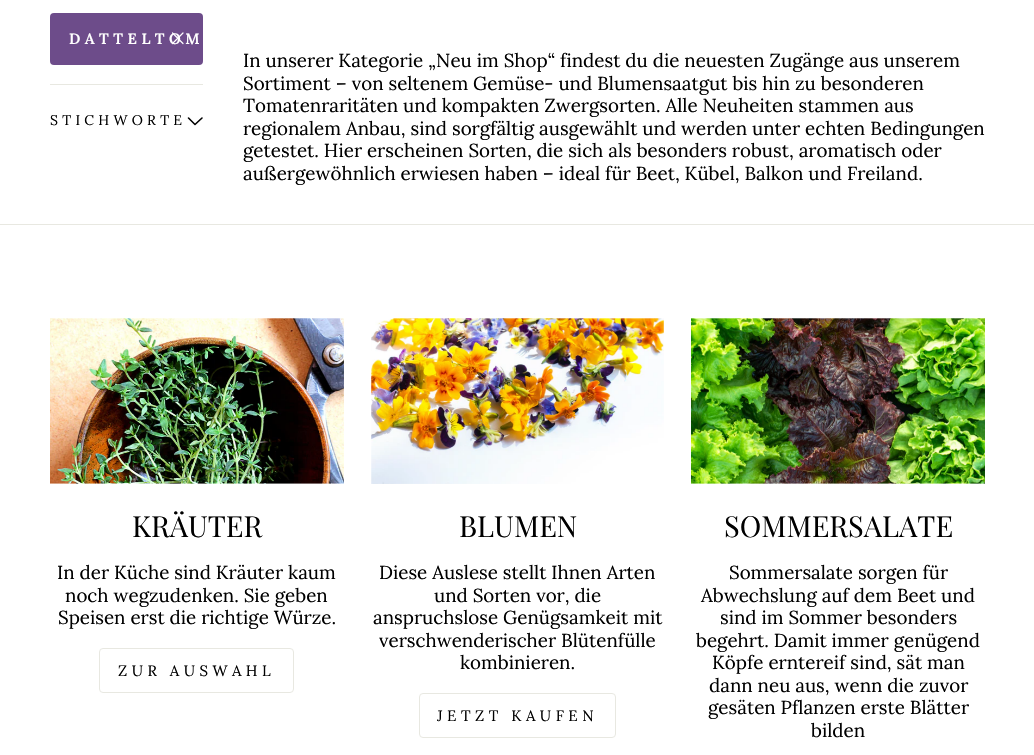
#include "include/core/SkBlurTypes.h"
#include "include/core/SkCanvas.h"
#include "include/core/SkData.h"
#include "include/core/SkFont.h"
#include "include/core/SkFontMgr.h"
#include "include/core/SkImage.h"
#include "include/core/SkMaskFilter.h"
#include "include/core/SkPaint.h"
#include "include/core/SkPathBuilder.h"
#include "include/core/SkTextBlob.h"
#include "include/effects/SkDashPathEffect.h"
#include "include/effects/SkGradientShader.h"
#include "include/utils/SkParsePath.h"

extern sk_sp<SkFontMgr> fontMgr;

void draw(SkCanvas* canvas) {
  SkPaint p;
  p.setAntiAlias(true);
  auto spacedText = [&](const char* s, float x, float y, const SkFont& font, const SkPaint& ink, float letter, float word) {
    std::vector<SkGlyphID> glyphs(font.countText(s, strlen(s), SkTextEncoding::kUTF8));
    std::vector<float> xs(glyphs.size());
    font.textToGlyphs(s, strlen(s), SkTextEncoding::kUTF8, glyphs);
    font.getXPos(glyphs, xs, x);
    float extra = 0;
    for (size_t i = 0; i < glyphs.size(); i++) {
      xs[i] += extra;
      extra += letter + word * (glyphs[i] == font.unicharToGlyph(' '));
    }
    canvas->drawTextBlob(SkTextBlob::MakeFromPosHGlyphs(glyphs, xs, y, font), 0, 0, ink);
  };
  canvas->clear(SK_ColorWHITE);
  p.setColor(SkColorSetRGB(109, 76, 138));
  canvas->drawRoundRect(SkRect::MakeLTRB(50, 13, 203, 65), 4, 4, p);
  p.setStyle(SkPaint::kStroke_Style);
  p.setStrokeWidth(1.2f);
  p.setStrokeCap(SkPaint::kRound_Cap);
  p.setStrokeJoin(SkPaint::kRound_Join);
  p.setColor(SK_ColorWHITE);
  canvas->drawPath(SkPathBuilder().moveTo(172.5f, 33).lineTo(183, 43.5f).moveTo(183, 33).lineTo(172.5f, 43.5f).detach(), p);
  p.setStyle(SkPaint::kFill_Style);
  p.setColor(SkColorSetRGB(232, 232, 225));
  canvas->drawRect(SkRect::MakeLTRB(50, 84, 203, 85), p);
  p.setStyle(SkPaint::kStroke_Style);
  p.setStrokeWidth(1.6f);
  p.setColor(SK_ColorBLACK);
  canvas->drawPath(SkPathBuilder().moveTo(188.5f, 118).lineTo(195, 124.5f).lineTo(202, 118).detach(), p);
  p.setStyle(SkPaint::kFill_Style);
  p.setColor(SkColorSetRGB(232, 232, 225));
  canvas->drawRect(SkRect::MakeLTRB(0, 224, 1034, 225), p);
  canvas->drawImageRect(SkImages::DeferredFromEncodedData(SkData::MakeFromFileName("images/1.png")), SkRect::MakeLTRB(50, 318, 344, 484), SkSamplingOptions());
  p.setStyle(SkPaint::kStroke_Style);
  p.setStrokeWidth(1);
  p.setStrokeCap(SkPaint::kButt_Cap);
  p.setStrokeJoin(SkPaint::kMiter_Join);
  canvas->drawRoundRect(SkRect::MakeLTRB(99.5f, 648.5f, 293.5f, 692.5f), 3.5f, 3.5f, p);
  canvas->drawImageRect(SkImages::DeferredFromEncodedData(SkData::MakeFromFileName("images/2.png")), SkRect::MakeLTRB(371, 318, 664, 484), SkSamplingOptions());
  canvas->drawRoundRect(SkRect::MakeLTRB(419.5f, 693.5f, 615.5f, 737.5f), 3.5f, 3.5f, p);
  canvas->drawImageRect(SkImages::DeferredFromEncodedData(SkData::MakeFromFileName("images/3.png")), SkRect::MakeLTRB(691, 318, 985, 484), SkSamplingOptions());
  SkFont font1(fontMgr->matchFamilyStyle("Lora", SkFontStyle(600, SkFontStyle::kNormal_Width, SkFontStyle::kUpright_Slant)), 15);
  font1.setSubpixel(true);
  p.setStyle(SkPaint::kFill_Style);
  p.setColor(SK_ColorWHITE);
  spacedText("DATTELTOM", 69, 44, font1, p, 4.5f, 0);
  SkFont font2(fontMgr->matchFamilyStyle("Lora", SkFontStyle::Normal()), 14);
  font2.setSubpixel(true);
  p.setColor(SK_ColorBLACK);
  spacedText("STICHWORTE", 50, 125, font2, p, 4.25f, 0);
  SkFont font3(fontMgr->matchFamilyStyle("Lora", SkFontStyle::Normal()), 18.75f);
  font3.setSubpixel(true);
  canvas->drawString("In unserer Kategorie „Neu im Shop“ findest du die neuesten Zugänge aus unserem", 243, 67, font3, p);
  canvas->drawString("Sortiment – von seltenem Gemüse- und Blumensaatgut bis hin zu besonderen", 243, 90, font3, p);
  canvas->drawString("Tomatenraritäten und kompakten Zwergsorten. Alle Neuheiten stammen aus", 243, 112, font3, p);
  canvas->drawString("regionalem Anbau, sind sorgfältig ausgewählt und werden unter echten Bedingungen", 243, 135, font3, p);
  canvas->drawString("getestet. Hier erscheinen Sorten, die sich als besonders robust, aromatisch oder", 243, 157, font3, p);
  canvas->drawString("außergewöhnlich erwiesen haben – ideal für Beet, Kübel, Balkon und Freiland.", 243, 180, font3, p);
  SkFont font4(fontMgr->matchFamilyStyle("Playfair Display", SkFontStyle::Normal()), 29);
  font4.setSubpixel(true);
  canvas->drawString("KRÄUTER", 132, 537, font4, p);
  canvas->drawString("In der Küche sind Kräuter kaum", 57, 579, font3, p);
  canvas->drawString("noch wegzudenken. Sie geben", 65, 602, font3, p);
  canvas->drawString("Speisen erst die richtige Würze.", 58, 624, font3, p);
  SkFont font5(fontMgr->matchFamilyStyle("Lora", SkFontStyle::Normal()), 15);
  font5.setSubpixel(true);
  spacedText("ZUR AUSWAHL", 118, 676, font5, p, 4.5f, 0);
  canvas->drawString("BLUMEN", 459, 537, font4, p);
  canvas->drawString("Diese Auslese stellt Ihnen Arten", 379, 579, font3, p);
  canvas->drawString("und Sorten vor, die", 434, 602, font3, p);
  canvas->drawString("anspruchslose Genügsamkeit mit", 373, 624, font3, p);
  canvas->drawString("verschwenderischer Blütenfülle", 379, 647, font3, p);
  canvas->drawString("kombinieren.", 460, 669, font3, p);
  spacedText("JETZT KAUFEN", 437, 721, font5, p, 4.5f, 0);
  canvas->drawString("SOMMERSALATE", 724, 537, font4, p);
  canvas->drawString("Sommersalate sorgen für", 729, 579, font3, p);
  canvas->drawString("Abwechslung auf dem Beet und", 701, 602, font3, p);
  canvas->drawString("sind im Sommer besonders", 720, 624, font3, p);
  canvas->drawString("begehrt. Damit immer genügend", 696, 647, font3, p);
  canvas->drawString("Köpfe erntereif sind, sät man", 712, 669, font3, p);
  canvas->drawString("dann neu aus, wenn die zuvor", 709, 692, font3, p);
  canvas->drawString("gesäten Pflanzen erste Blätter", 708, 714, font3, p);
  canvas->drawString("bilden", 811, 737, font3, p);
}
